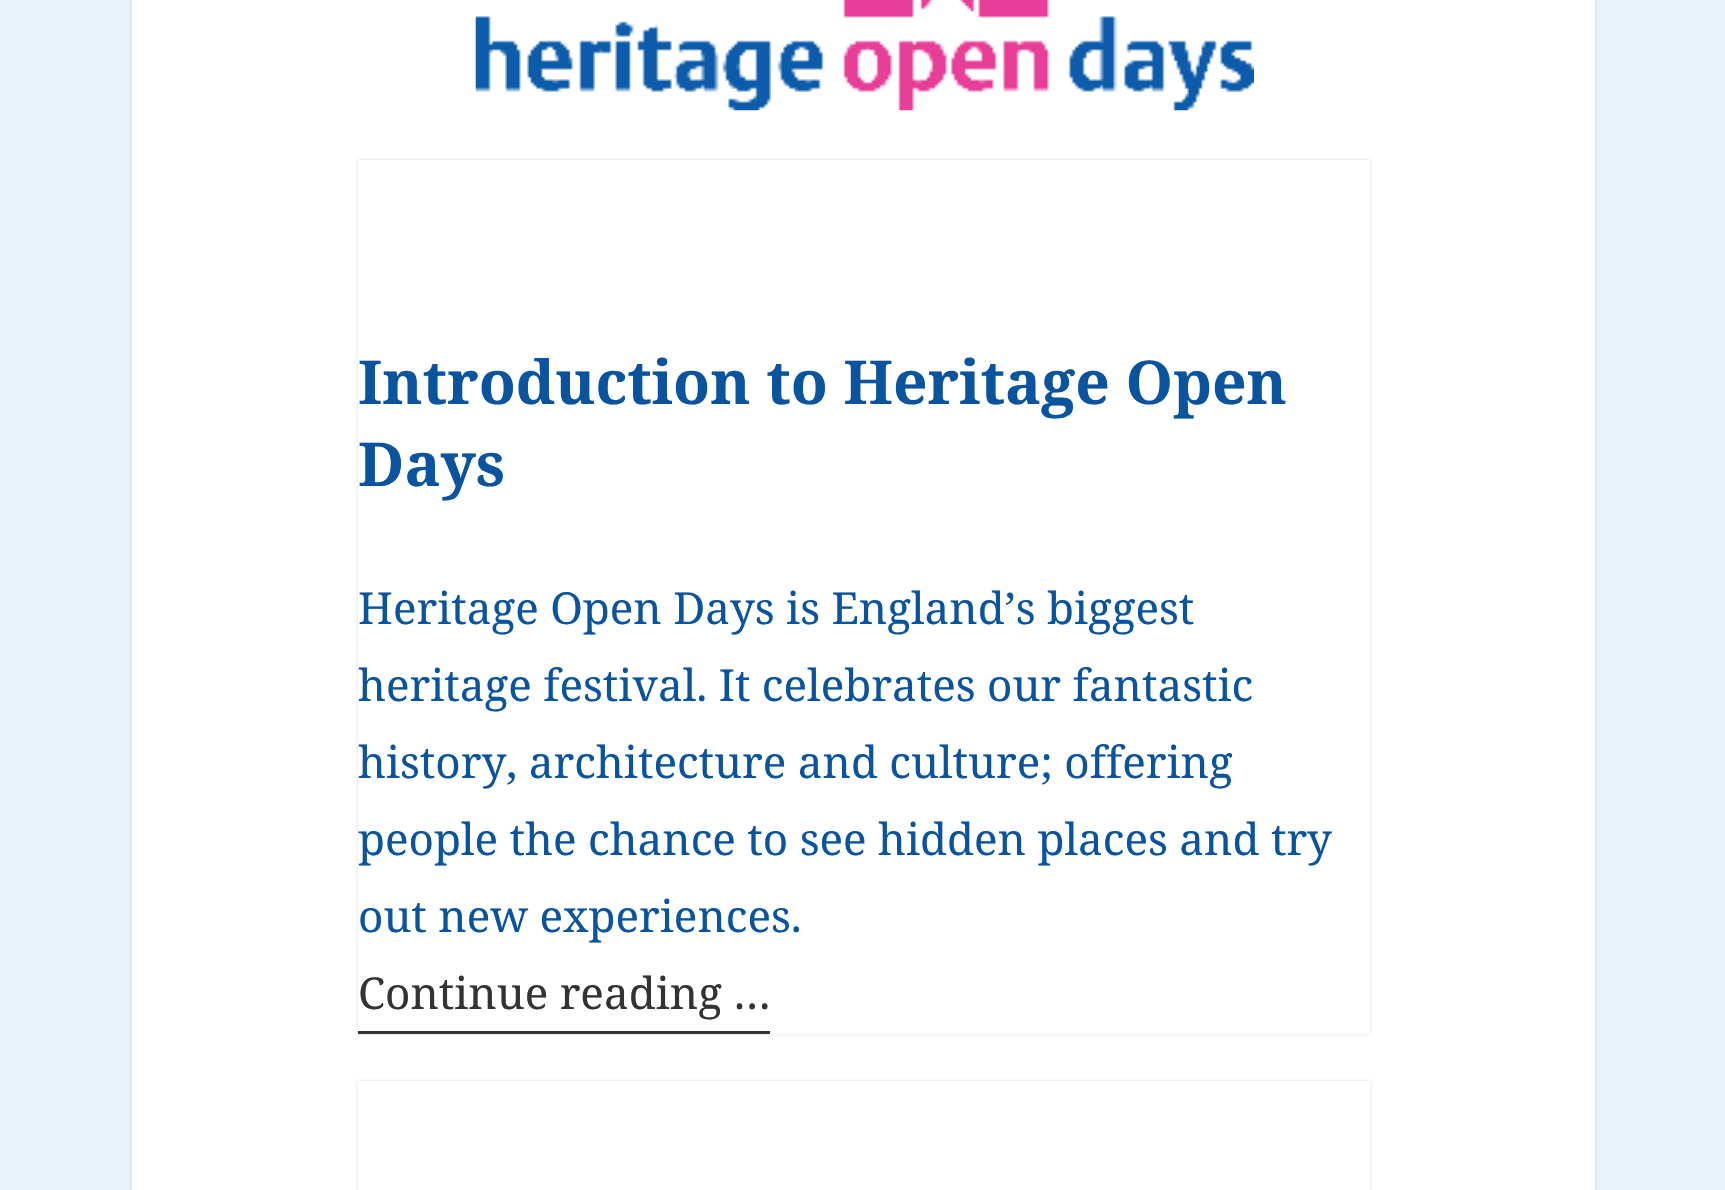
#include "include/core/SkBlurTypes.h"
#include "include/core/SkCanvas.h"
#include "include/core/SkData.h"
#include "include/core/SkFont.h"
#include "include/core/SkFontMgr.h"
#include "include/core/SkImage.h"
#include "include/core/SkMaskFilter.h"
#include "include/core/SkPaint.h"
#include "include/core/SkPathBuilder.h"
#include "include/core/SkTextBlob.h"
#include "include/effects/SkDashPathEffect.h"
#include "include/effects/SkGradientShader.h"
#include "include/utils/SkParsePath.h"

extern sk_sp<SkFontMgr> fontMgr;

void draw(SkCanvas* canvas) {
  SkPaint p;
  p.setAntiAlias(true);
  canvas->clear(SkColorSetRGB(233, 242, 249));
  p.setColor(SkColorSetARGB(38, 0, 0, 0));
  p.setMaskFilter(SkMaskFilter::MakeBlur(kNormal_SkBlurStyle, 1.5f));
  canvas->drawRect(SkRect::MakeLTRB(132, -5, 1595, 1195), p);
  p.setMaskFilter(nullptr);
  p.setColor(SK_ColorWHITE);
  canvas->drawRect(SkRect::MakeLTRB(132, 0, 1595, 1190), p);
  canvas->drawImageRect(SkImages::DeferredFromEncodedData(SkData::MakeFromFileName("images/1.png")), SkRect::MakeLTRB(475, 0, 1254, 111), SkSamplingOptions());
  p.setColor(SkColorSetARGB(38, 0, 0, 0));
  p.setMaskFilter(SkMaskFilter::MakeBlur(kNormal_SkBlurStyle, 1.5f));
  canvas->drawRect(SkRect::MakeLTRB(358, 160, 1370, 1034), p);
  p.setMaskFilter(nullptr);
  p.setColor(SK_ColorWHITE);
  canvas->drawRect(SkRect::MakeLTRB(358, 160, 1370, 1034), p);
  p.setColor(SkColorSetRGB(51, 51, 51));
  canvas->drawRect(SkRect::MakeLTRB(358, 1031, 770, 1034), p);
  p.setColor(SkColorSetARGB(38, 0, 0, 0));
  p.setMaskFilter(SkMaskFilter::MakeBlur(kNormal_SkBlurStyle, 1.5f));
  canvas->drawRect(SkRect::MakeLTRB(358, 1081, 1370, 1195), p);
  p.setMaskFilter(nullptr);
  p.setColor(SK_ColorWHITE);
  canvas->drawRect(SkRect::MakeLTRB(358, 1081, 1370, 1190), p);
  SkFont font1(fontMgr->matchFamilyStyle("Noto Serif", SkFontStyle::Bold()), 60.5f);
  font1.setSubpixel(true);
  p.setColor(SkColorSetRGB(9, 83, 159));
  canvas->drawString("Introduction to Heritage Open", 358, 404, font1, p);
  canvas->drawString("Days", 358, 486, font1, p);
  SkFont font2(fontMgr->matchFamilyStyle("Noto Serif", SkFontStyle::Normal()), 44);
  font2.setSubpixel(true);
  canvas->drawString("Heritage Open Days is England’s biggest", 358, 624, font2, p);
  canvas->drawString("heritage festival. It celebrates our fantastic", 358, 701, font2, p);
  canvas->drawString("history, architecture and culture; offering", 358, 778, font2, p);
  canvas->drawString("people the chance to see hidden places and try", 358, 855, font2, p);
  canvas->drawString("out new experiences.", 358, 932, font2, p);
  p.setColor(SkColorSetRGB(51, 51, 51));
  canvas->drawString("Continue reading …", 358, 1009, font2, p);
}
